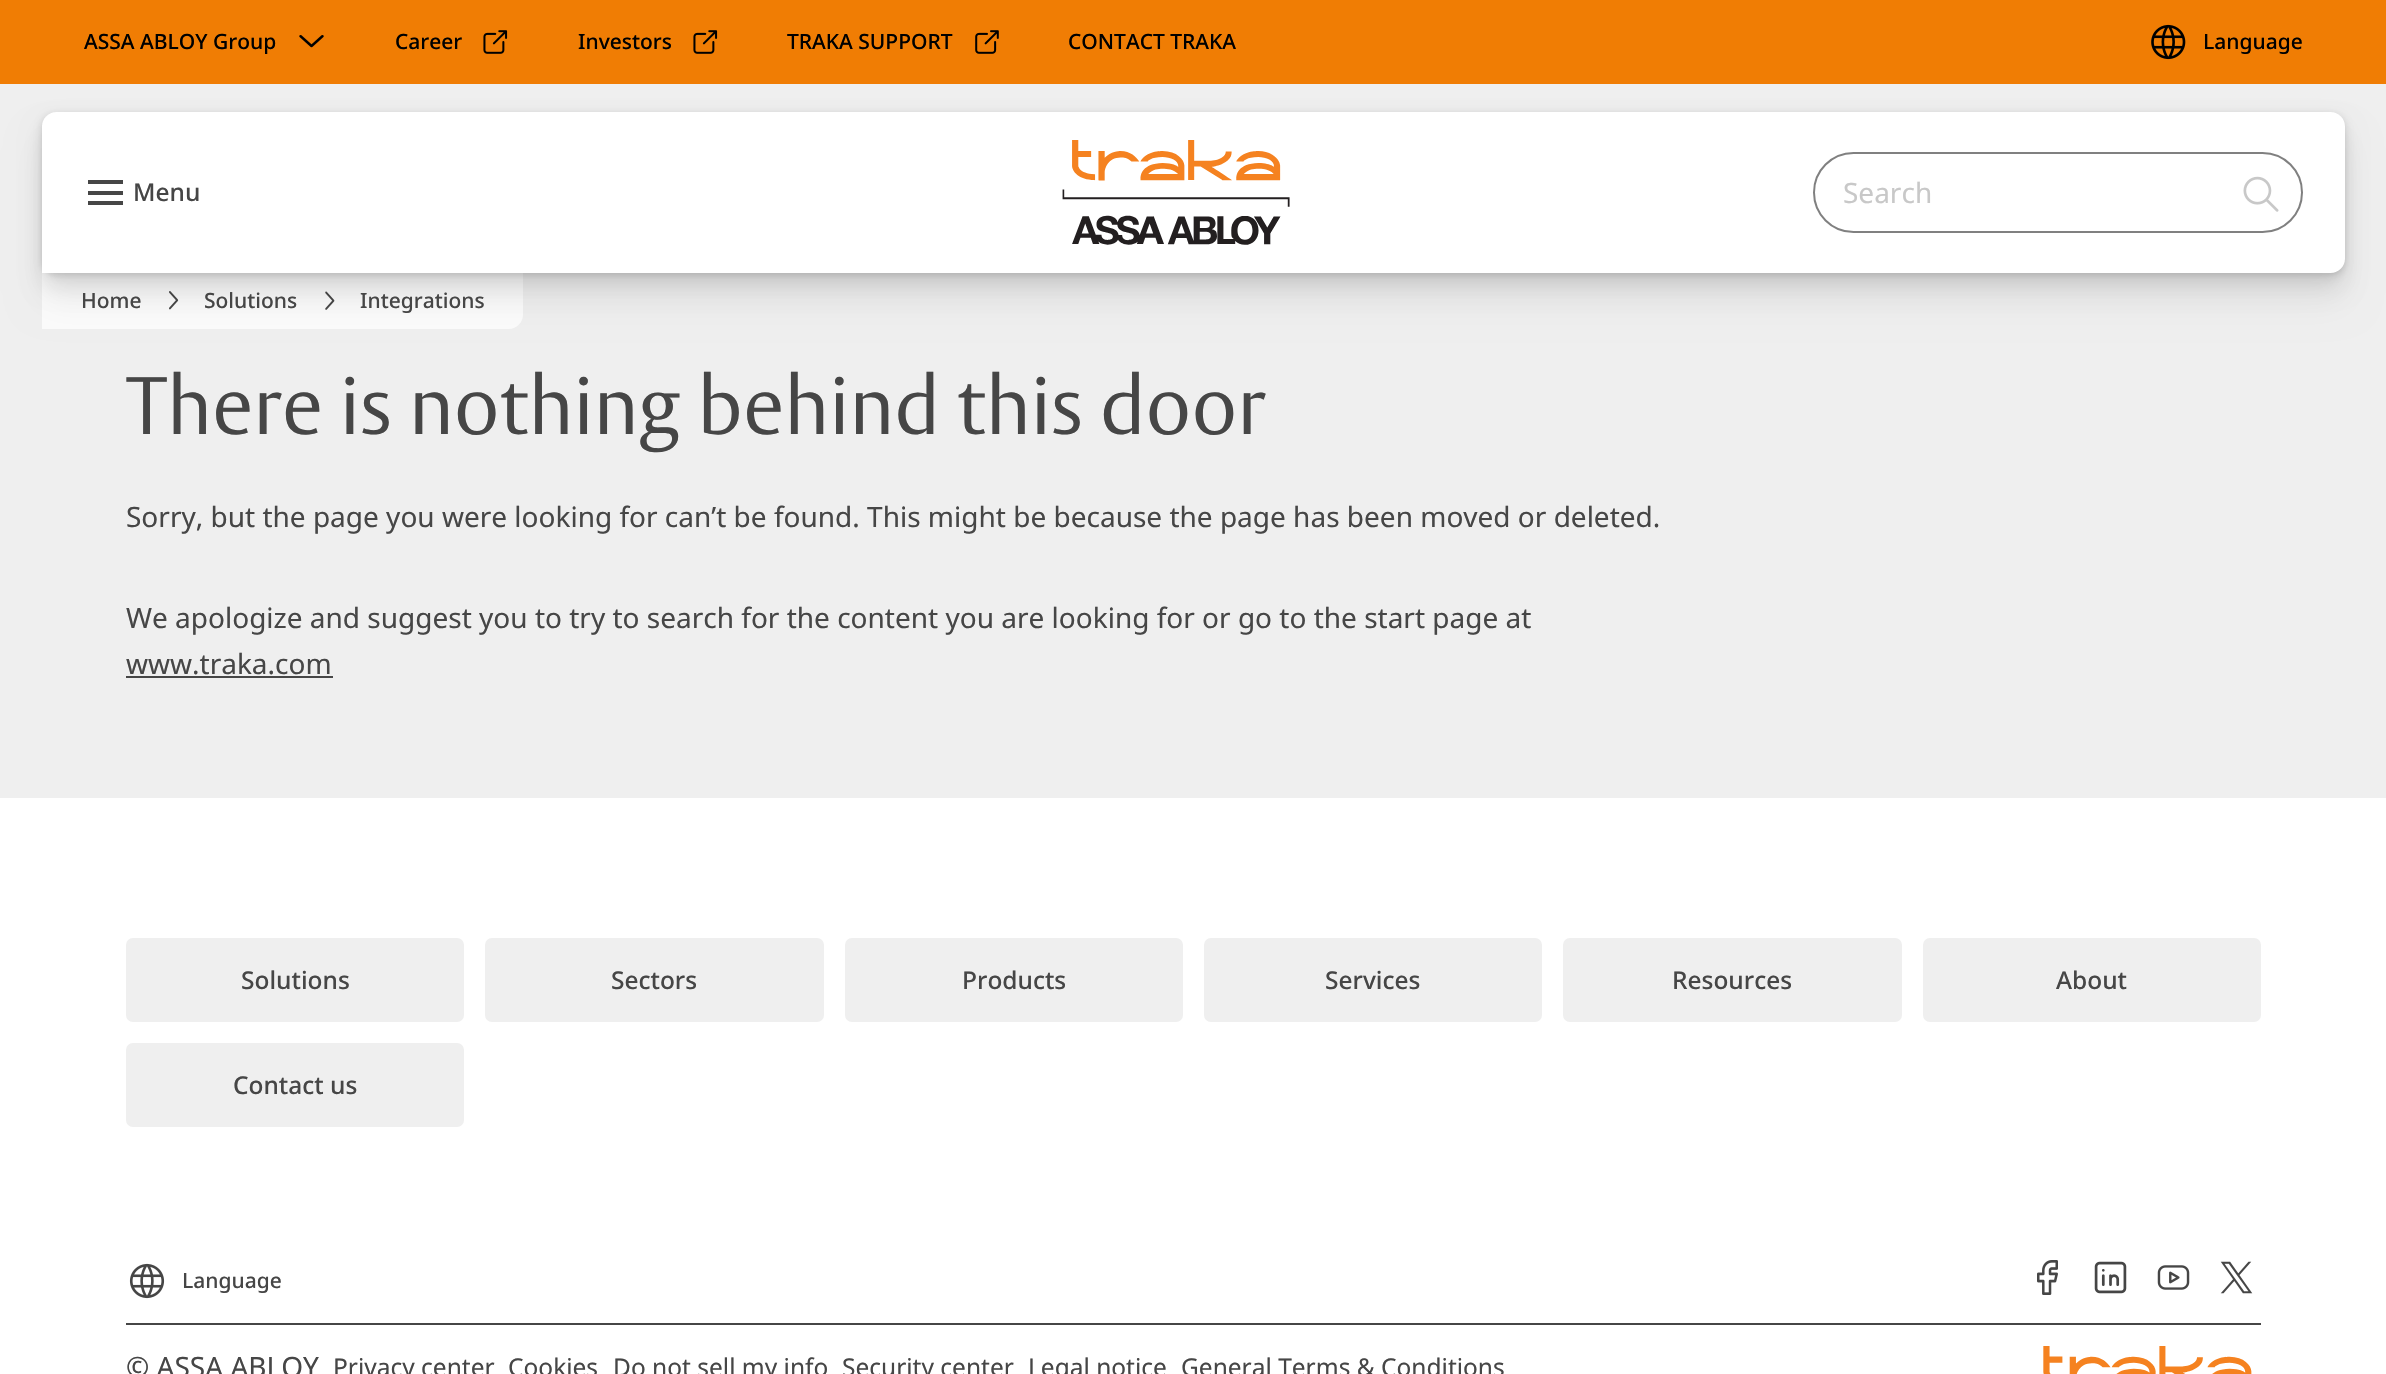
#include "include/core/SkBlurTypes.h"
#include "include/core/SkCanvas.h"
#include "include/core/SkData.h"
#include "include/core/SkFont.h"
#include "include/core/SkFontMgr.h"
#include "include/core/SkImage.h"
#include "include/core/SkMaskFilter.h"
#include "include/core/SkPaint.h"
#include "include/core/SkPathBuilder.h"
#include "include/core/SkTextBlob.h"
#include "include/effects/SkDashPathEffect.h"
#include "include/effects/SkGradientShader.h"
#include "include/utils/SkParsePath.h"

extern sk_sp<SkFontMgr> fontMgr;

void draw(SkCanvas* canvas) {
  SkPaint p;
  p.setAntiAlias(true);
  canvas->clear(SK_ColorWHITE);
  p.setColor(SkColorSetRGB(240, 125, 4));
  canvas->drawRect(SkRect::MakeLTRB(0, 0, 2386, 84), p);
  canvas->drawImageRect(SkImages::DeferredFromEncodedData(SkData::MakeFromFileName("images/1.png")), SkRect::MakeLTRB(299, 35, 324, 48), SkSamplingOptions());
  canvas->drawImageRect(SkImages::DeferredFromEncodedData(SkData::MakeFromFileName("images/2.png")), SkRect::MakeLTRB(483, 30, 508, 54), SkSamplingOptions());
  canvas->drawImageRect(SkImages::DeferredFromEncodedData(SkData::MakeFromFileName("images/2.png")), SkRect::MakeLTRB(693, 30, 718, 54), SkSamplingOptions());
  canvas->drawImageRect(SkImages::DeferredFromEncodedData(SkData::MakeFromFileName("images/3.png")), SkRect::MakeLTRB(975, 30, 999, 54), SkSamplingOptions());
  canvas->drawImageRect(SkImages::DeferredFromEncodedData(SkData::MakeFromFileName("images/4.png")), SkRect::MakeLTRB(2151, 24, 2186, 60), SkSamplingOptions());
  p.setColor(SkColorSetRGB(239, 239, 239));
  canvas->drawRect(SkRect::MakeLTRB(0, 84, 2386, 798), p);
  p.setColor(SK_ColorWHITE);
  canvas->drawPath(SkPathBuilder().moveTo(56, 112).lineTo(2331, 112).cubicTo(2338.5f, 112, 2345, 118.5f, 2345, 126).lineTo(2345, 259).cubicTo(2345, 266.5f, 2338.5f, 273, 2331, 273).lineTo(42, 273).lineTo(42, 126).cubicTo(42, 118.5f, 48.5f, 112, 56, 112).close().detach(), p);
  p.setColor(SkColorSetRGB(70, 70, 70));
  canvas->drawRect(SkRect::MakeLTRB(88, 180, 123, 184), p);
  canvas->drawRect(SkRect::MakeLTRB(88, 191, 123, 195), p);
  canvas->drawRect(SkRect::MakeLTRB(88, 201, 123, 205), p);
  canvas->drawImageRect(SkImages::DeferredFromEncodedData(SkData::MakeFromFileName("images/5.png")), SkRect::MakeLTRB(1062, 140, 1290, 245), SkSamplingOptions());
  p.setColor(SkColorSetRGB(251, 251, 251));
  canvas->drawPath(SkPathBuilder().moveTo(42, 273).lineTo(523, 273).lineTo(523, 315).cubicTo(523, 322.5f, 516.5f, 329, 509, 329).lineTo(42, 329).close().detach(), p);
  canvas->save();
  canvas->clipPath(SkPathBuilder(SkPathFillType::kEvenOdd).moveTo(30, 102).lineTo(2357, 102).lineTo(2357, 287).lineTo(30, 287).close().moveTo(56, 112).lineTo(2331, 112).cubicTo(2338.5f, 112, 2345, 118.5f, 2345, 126).lineTo(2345, 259).cubicTo(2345, 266.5f, 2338.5f, 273, 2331, 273).lineTo(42, 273).lineTo(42, 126).cubicTo(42, 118.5f, 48.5f, 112, 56, 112).close().detach(), true);
  p.setColor(SkColorSetARGB(38, 0, 0, 0));
  p.setMaskFilter(SkMaskFilter::MakeBlur(kNormal_SkBlurStyle, 3.5f));
  canvas->drawRoundRect(SkRect::MakeLTRB(42, 114, 2345, 275), 14, 14, p);
  p.setMaskFilter(nullptr);
  canvas->restore();
  canvas->drawImageRect(SkImages::DeferredFromEncodedData(SkData::MakeFromFileName("images/7.png")), SkRect::MakeLTRB(169, 291, 179, 310), SkSamplingOptions());
  canvas->drawImageRect(SkImages::DeferredFromEncodedData(SkData::MakeFromFileName("images/8.png")), SkRect::MakeLTRB(325, 291, 335, 310), SkSamplingOptions());
  canvas->save();
  canvas->clipPath(SkPathBuilder(SkPathFillType::kEvenOdd).moveTo(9, 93).lineTo(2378, 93).lineTo(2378, 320).lineTo(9, 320).close().moveTo(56, 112).lineTo(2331, 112).cubicTo(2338.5f, 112, 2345, 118.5f, 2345, 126).lineTo(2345, 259).cubicTo(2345, 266.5f, 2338.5f, 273, 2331, 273).lineTo(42, 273).lineTo(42, 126).cubicTo(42, 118.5f, 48.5f, 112, 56, 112).close().detach(), true);
  p.setColor(SkColorSetARGB(26, 0, 0, 0));
  p.setMaskFilter(SkMaskFilter::MakeBlur(kNormal_SkBlurStyle, 10.5f));
  canvas->drawRoundRect(SkRect::MakeLTRB(42, 126, 2345, 287), 14, 14, p);
  p.setMaskFilter(nullptr);
  canvas->restore();
  canvas->save();
  canvas->clipPath(SkPathBuilder(SkPathFillType::kEvenOdd).moveTo(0, 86).lineTo(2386, 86).lineTo(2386, 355).lineTo(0, 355).close().moveTo(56, 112).lineTo(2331, 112).cubicTo(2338.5f, 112, 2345, 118.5f, 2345, 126).lineTo(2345, 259).cubicTo(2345, 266.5f, 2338.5f, 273, 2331, 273).lineTo(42, 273).lineTo(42, 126).cubicTo(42, 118.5f, 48.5f, 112, 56, 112).close().detach(), true);
  p.setColor(SkColorSetARGB(13, 0, 0, 0));
  p.setMaskFilter(SkMaskFilter::MakeBlur(kNormal_SkBlurStyle, 17.5f));
  canvas->drawRoundRect(SkRect::MakeLTRB(42, 140, 2345, 301), 14, 14, p);
  p.setMaskFilter(nullptr);
  canvas->restore();
  p.setStyle(SkPaint::kStroke_Style);
  p.setStrokeWidth(2);
  p.setColor(SkColorSetRGB(128, 128, 128));
  canvas->drawRoundRect(SkRect::MakeLTRB(1814, 153, 2302, 232), 39.5f, 39.5f, p);
  canvas->drawImageRect(SkImages::DeferredFromEncodedData(SkData::MakeFromFileName("images/6.png")), SkRect::MakeLTRB(2243, 176, 2279, 212), SkSamplingOptions());
  p.setStyle(SkPaint::kFill_Style);
  p.setColor(SkColorSetRGB(70, 70, 70));
  canvas->drawRect(SkRect::MakeLTRB(126, 676, 333, 678), p);
  p.setColor(SkColorSetRGB(239, 239, 239));
  canvas->drawRoundRect(SkRect::MakeLTRB(128, 940, 462, 1020), 5, 5, p);
  p.setStyle(SkPaint::kStroke_Style);
  p.setStrokeWidth(4);
  canvas->drawRoundRect(SkRect::MakeLTRB(128, 940, 462, 1020), 5, 5, p);
  p.setStyle(SkPaint::kFill_Style);
  canvas->drawRoundRect(SkRect::MakeLTRB(487, 940, 822, 1020), 5, 5, p);
  p.setStyle(SkPaint::kStroke_Style);
  canvas->drawRoundRect(SkRect::MakeLTRB(487, 940, 822, 1020), 5, 5, p);
  p.setStyle(SkPaint::kFill_Style);
  canvas->drawRoundRect(SkRect::MakeLTRB(847, 940, 1181, 1020), 5, 5, p);
  p.setStyle(SkPaint::kStroke_Style);
  canvas->drawRoundRect(SkRect::MakeLTRB(847, 940, 1181, 1020), 5, 5, p);
  p.setStyle(SkPaint::kFill_Style);
  canvas->drawRoundRect(SkRect::MakeLTRB(1206, 940, 1540, 1020), 5, 5, p);
  p.setStyle(SkPaint::kStroke_Style);
  canvas->drawRoundRect(SkRect::MakeLTRB(1206, 940, 1540, 1020), 5, 5, p);
  p.setStyle(SkPaint::kFill_Style);
  canvas->drawRoundRect(SkRect::MakeLTRB(1565, 940, 1900, 1020), 5, 5, p);
  p.setStyle(SkPaint::kStroke_Style);
  canvas->drawRoundRect(SkRect::MakeLTRB(1565, 940, 1900, 1020), 5, 5, p);
  p.setStyle(SkPaint::kFill_Style);
  canvas->drawRoundRect(SkRect::MakeLTRB(1925, 940, 2259, 1020), 5, 5, p);
  p.setStyle(SkPaint::kStroke_Style);
  canvas->drawRoundRect(SkRect::MakeLTRB(1925, 940, 2259, 1020), 5, 5, p);
  p.setStyle(SkPaint::kFill_Style);
  canvas->drawRoundRect(SkRect::MakeLTRB(128, 1045, 462, 1125), 5, 5, p);
  p.setStyle(SkPaint::kStroke_Style);
  canvas->drawRoundRect(SkRect::MakeLTRB(128, 1045, 462, 1125), 5, 5, p);
  canvas->drawImageRect(SkImages::DeferredFromEncodedData(SkData::MakeFromFileName("images/9.png")), SkRect::MakeLTRB(129, 1263, 165, 1299), SkSamplingOptions());
  canvas->drawImageRect(SkImages::DeferredFromEncodedData(SkData::MakeFromFileName("images/10.png")), SkRect::MakeLTRB(2037, 1260, 2058, 1295), SkSamplingOptions());
  canvas->drawImageRect(SkImages::DeferredFromEncodedData(SkData::MakeFromFileName("images/11.png")), SkRect::MakeLTRB(2094, 1261, 2127, 1294), SkSamplingOptions());
  canvas->drawImageRect(SkImages::DeferredFromEncodedData(SkData::MakeFromFileName("images/12.png")), SkRect::MakeLTRB(2157, 1265, 2190, 1290), SkSamplingOptions());
  canvas->drawImageRect(SkImages::DeferredFromEncodedData(SkData::MakeFromFileName("images/13.png")), SkRect::MakeLTRB(2220, 1261, 2253, 1294), SkSamplingOptions());
  p.setStyle(SkPaint::kFill_Style);
  p.setColor(SkColorSetRGB(70, 70, 70));
  canvas->drawRect(SkRect::MakeLTRB(126, 1323, 2261, 1325), p);
  canvas->drawImageRect(SkImages::DeferredFromEncodedData(SkData::MakeFromFileName("images/14.png")), SkRect::MakeLTRB(2043, 1346, 2252, 1374), SkSamplingOptions());
  SkFont font1(fontMgr->matchFamilyStyle("Noto Sans", SkFontStyle(500, SkFontStyle::kNormal_Width, SkFontStyle::kUpright_Slant)), 21);
  font1.setSubpixel(true);
  p.setColor(SK_ColorBLACK);
  canvas->drawString("ASSA ABLOY Group", 84, 49, font1, p);
  canvas->drawString("Career", 395, 49, font1, p);
  canvas->drawString("Investors", 578, 49, font1, p);
  canvas->drawString("TRAKA SUPPORT", 787, 49, font1, p);
  canvas->drawString("CONTACT TRAKA", 1068, 49, font1, p);
  canvas->drawString("Language", 2203, 49, font1, p);
  SkFont font2(fontMgr->matchFamilyStyle("Noto Sans", SkFontStyle(500, SkFontStyle::kNormal_Width, SkFontStyle::kUpright_Slant)), 24.5f);
  font2.setSubpixel(true);
  p.setColor(SkColorSetRGB(70, 70, 70));
  canvas->drawString("Menu", 133, 201, font2, p);
  SkFont font3(fontMgr->matchFamilyStyle("Noto Sans", SkFontStyle::Normal()), 28);
  font3.setSubpixel(true);
  p.setColor(SkColorSetRGB(200, 200, 200));
  canvas->drawString("Search", 1843, 203, font3, p);
  p.setColor(SkColorSetRGB(70, 70, 70));
  canvas->drawString("Home", 81, 308, font1, p);
  canvas->drawString("Solutions", 204, 308, font1, p);
  canvas->drawString("Integrations", 360, 308, font1, p);
  SkFont font4(fontMgr->matchFamilyStyle("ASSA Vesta", SkFontStyle(300, SkFontStyle::kNormal_Width, SkFontStyle::kUpright_Slant)), 80.5f);
  font4.setSubpixel(true);
  canvas->drawString("There is nothing behind this door", 126, 434, font4, p);
  canvas->drawString("Sorry, but the page you were looking for can’t be found. This might be because the page has been moved or deleted.", 126, 527, font3, p);
  canvas->drawString("We apologize and suggest you to try to search for the content you are looking for or go to the start page at", 126, 628, font3, p);
  canvas->drawString("www.traka.com", 126, 674, font3, p);
  canvas->drawString("Solutions", 241, 989, font2, p);
  canvas->drawString("Sectors", 611, 989, font2, p);
  canvas->drawString("Products", 962, 989, font2, p);
  canvas->drawString("Services", 1325, 989, font2, p);
  canvas->drawString("Resources", 1672, 989, font2, p);
  canvas->drawString("About", 2056, 989, font2, p);
  canvas->drawString("Contact us", 233, 1094, font2, p);
  canvas->drawString("Language", 182, 1288, font1, p);
  canvas->drawString("© ASSA ABLOY", 126, 1377, font3, p);
  SkFont font5(fontMgr->matchFamilyStyle("Noto Sans", SkFontStyle::Normal()), 24.5f);
  font5.setSubpixel(true);
  canvas->drawString("Privacy center", 333, 1376, font5, p);
  canvas->drawString("Cookies", 508, 1376, font5, p);
  canvas->drawString("Do not sell my info", 613, 1376, font5, p);
  canvas->drawString("Security center", 842, 1376, font5, p);
  canvas->drawString("Legal notice", 1028, 1376, font5, p);
  canvas->drawString("General Terms & Conditions", 1181, 1376, font5, p);
}
